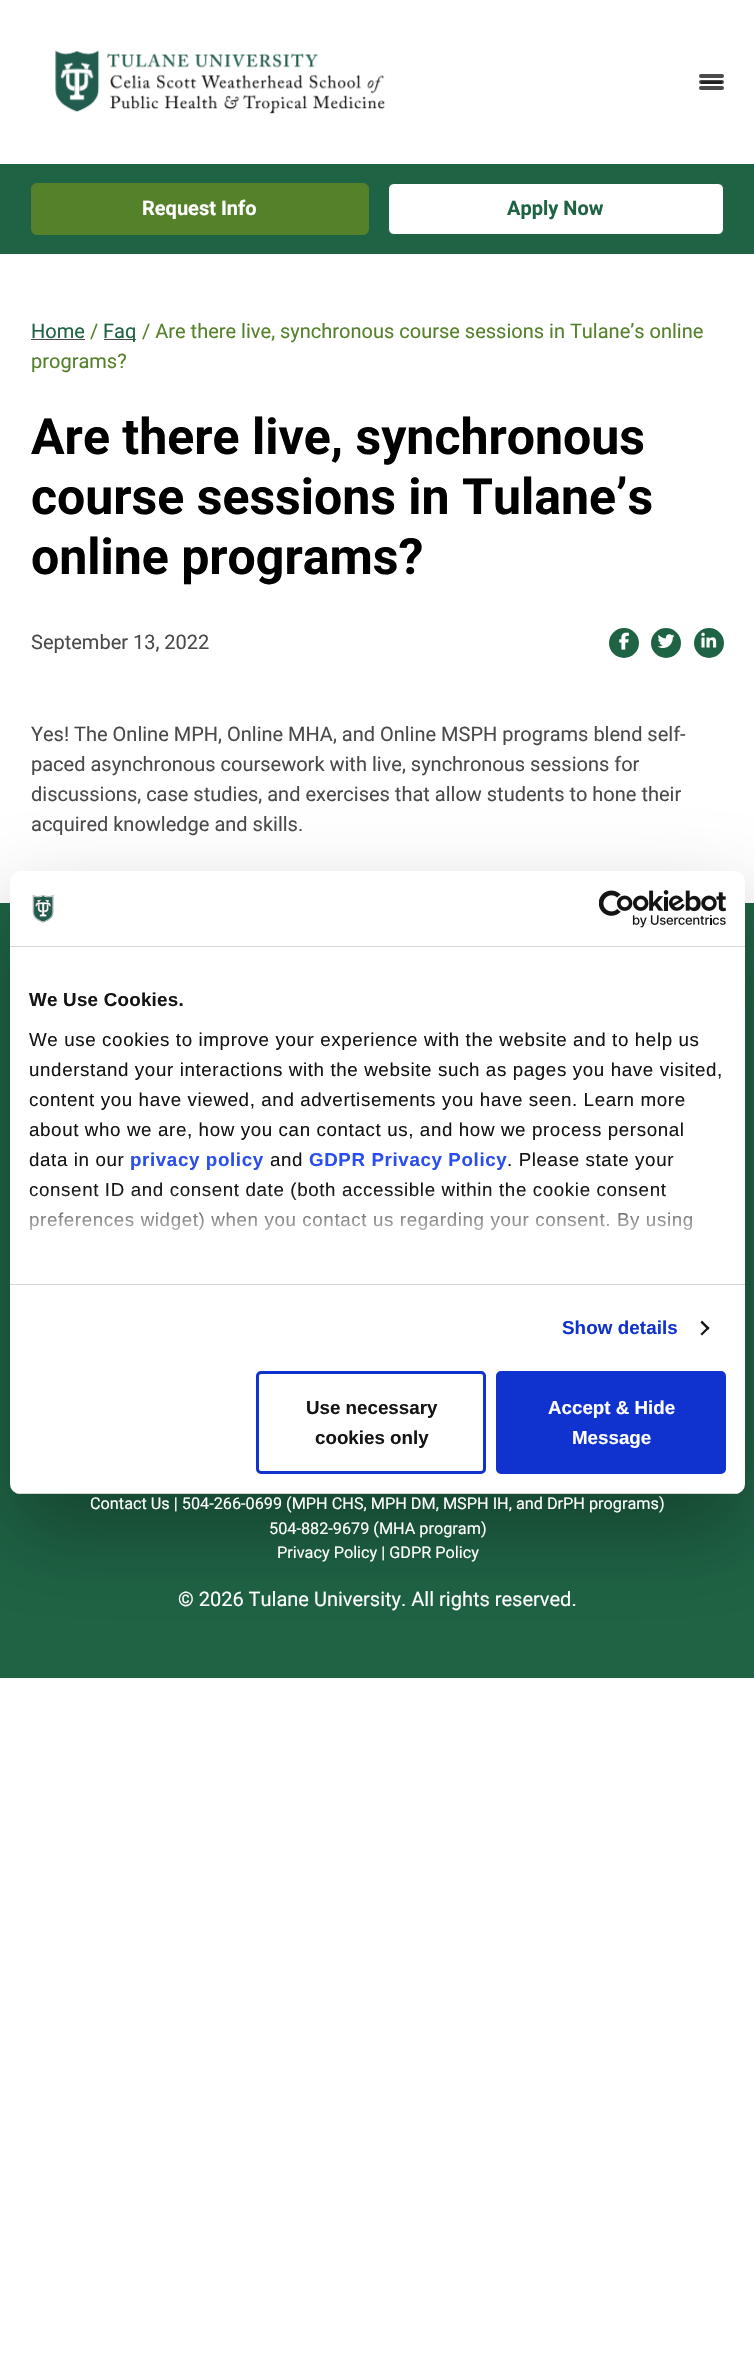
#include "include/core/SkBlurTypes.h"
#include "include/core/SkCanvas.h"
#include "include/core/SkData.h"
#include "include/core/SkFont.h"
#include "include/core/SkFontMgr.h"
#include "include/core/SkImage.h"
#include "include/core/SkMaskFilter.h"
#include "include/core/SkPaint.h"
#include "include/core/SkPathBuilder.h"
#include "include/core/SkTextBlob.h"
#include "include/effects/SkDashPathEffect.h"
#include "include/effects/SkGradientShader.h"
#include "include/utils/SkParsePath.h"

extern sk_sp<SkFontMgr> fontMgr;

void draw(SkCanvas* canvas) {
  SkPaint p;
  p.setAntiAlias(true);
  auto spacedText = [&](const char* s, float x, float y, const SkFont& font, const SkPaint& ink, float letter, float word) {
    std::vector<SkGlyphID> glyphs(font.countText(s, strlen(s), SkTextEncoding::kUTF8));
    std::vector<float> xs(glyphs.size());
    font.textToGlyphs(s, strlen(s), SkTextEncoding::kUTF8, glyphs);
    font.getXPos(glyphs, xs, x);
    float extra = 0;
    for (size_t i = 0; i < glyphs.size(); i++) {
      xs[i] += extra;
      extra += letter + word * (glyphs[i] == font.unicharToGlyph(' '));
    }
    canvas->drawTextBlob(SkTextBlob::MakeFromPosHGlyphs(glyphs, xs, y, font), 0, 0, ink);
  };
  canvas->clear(SK_ColorWHITE);
  canvas->drawImageRect(SkImages::DeferredFromEncodedData(SkData::MakeFromFileName("images/1.png")), SkRect::MakeLTRB(55, 50, 385, 114), SkSamplingOptions());
  p.setColor(SkColorSetRGB(74, 74, 74));
  canvas->drawRoundRect(SkRect::MakeLTRB(699, 80, 724, 84), 2, 2, p);
  p.setColor(SkColorSetRGB(33, 33, 33));
  canvas->drawRect(SkRect::MakeLTRB(701, 81, 722, 84), p);
  p.setColor(SkColorSetRGB(74, 74, 74));
  canvas->drawRoundRect(SkRect::MakeLTRB(699, 74, 724, 78), 2, 2, p);
  canvas->drawRoundRect(SkRect::MakeLTRB(699, 86, 724, 90), 2, 2, p);
  p.setColor(SkColorSetRGB(30, 99, 68));
  canvas->drawRect(SkRect::MakeLTRB(0, 164, 754, 254), p);
  p.setColor(SkColorSetRGB(85, 129, 43));
  canvas->drawRoundRect(SkRect::MakeLTRB(31.5f, 183.5f, 368.5f, 234.5f), 5.5f, 5.5f, p);
  p.setStyle(SkPaint::kStroke_Style);
  p.setStrokeWidth(1);
  canvas->drawRoundRect(SkRect::MakeLTRB(31.5f, 183.5f, 368.5f, 234.5f), 5.5f, 5.5f, p);
  p.setStyle(SkPaint::kFill_Style);
  p.setColor(SK_ColorWHITE);
  canvas->drawRoundRect(SkRect::MakeLTRB(388.5f, 183.5f, 723.5f, 234.5f), 5.5f, 5.5f, p);
  p.setStyle(SkPaint::kStroke_Style);
  p.setColor(SkColorSetRGB(30, 99, 68));
  canvas->drawRoundRect(SkRect::MakeLTRB(388.5f, 183.5f, 723.5f, 234.5f), 5.5f, 5.5f, p);
  p.setStyle(SkPaint::kFill_Style);
  p.setColor(SkColorSetRGB(74, 74, 74));
  canvas->drawRect(SkRect::MakeLTRB(31, 339, 85, 340), p);
  canvas->drawRect(SkRect::MakeLTRB(104, 339, 136, 340), p);
  p.setColor(SkColorSetRGB(30, 99, 68));
  canvas->drawCircle(624, 643, 15, p);
  canvas->drawImageRect(SkImages::DeferredFromEncodedData(SkData::MakeFromFileName("images/2.png")), SkRect::MakeLTRB(619, 632, 629, 650), SkSamplingOptions());
  canvas->drawCircle(666, 643, 15, p);
  canvas->drawImageRect(SkImages::DeferredFromEncodedData(SkData::MakeFromFileName("images/3.png")), SkRect::MakeLTRB(657, 634, 675, 648), SkSamplingOptions());
  canvas->drawCircle(709, 643, 15, p);
  canvas->drawImageRect(SkImages::DeferredFromEncodedData(SkData::MakeFromFileName("images/4.png")), SkRect::MakeLTRB(701, 632, 717, 648), SkSamplingOptions());
  canvas->drawRect(SkRect::MakeLTRB(0, 903, 754, 1678), p);
  p.setColor(SkColorSetARGB(77, 0, 0, 0));
  p.setMaskFilter(SkMaskFilter::MakeBlur(kNormal_SkBlurStyle, 42.5f));
  canvas->drawRoundRect(SkRect::MakeLTRB(10, 911, 745, 1534), 10, 10, p);
  p.setMaskFilter(nullptr);
  p.setColor(SK_ColorWHITE);
  canvas->drawRoundRect(SkRect::MakeLTRB(10, 871, 745, 1494), 10, 10, p);
  p.setColor(SkColorSetRGB(214, 214, 214));
  canvas->drawRect(SkRect::MakeLTRB(10, 946, 745, 947), p);
  canvas->drawImageRect(SkImages::DeferredFromEncodedData(SkData::MakeFromFileName("images/5.png")), SkRect::MakeLTRB(32, 895, 54, 923), SkSamplingOptions());
  canvas->drawImageRect(SkImages::DeferredFromEncodedData(SkData::MakeFromFileName("images/6.png")), SkRect::MakeLTRB(599, 890, 726, 928), SkSamplingOptions());
  canvas->drawRect(SkRect::MakeLTRB(10, 1284, 745, 1285), p);
  p.setColor(SkColorSetRGB(20, 20, 20));
  canvas->drawPath(SkPathBuilder().moveTo(702, 1320.5f).lineTo(709.5f, 1328).lineTo(708, 1330).lineTo(700.5f, 1322.5f).close().detach(), p);
  canvas->drawPath(SkPathBuilder().moveTo(708, 1326.5f).lineTo(709.5f, 1328).lineTo(702, 1335.5f).lineTo(700.5f, 1334).close().detach(), p);
  canvas->save();
  canvas->clipPath(SkPathBuilder().moveTo(20, 871).lineTo(735, 871).cubicTo(740.5f, 871, 745, 875.5f, 745, 881).lineTo(745, 1484).cubicTo(745, 1489.5f, 740.5f, 1494, 735, 1494).lineTo(20, 1494).cubicTo(14.5f, 1494, 10, 1489.5f, 10, 1484).lineTo(10, 881).cubicTo(10, 875.5f, 14.5f, 871, 20, 871).close().detach(), true);
  p.setColor(SkColorSetRGB(214, 214, 214));
  canvas->drawRect(SkRect::MakeLTRB(10, 1493, 745, 1494), p);
  canvas->restore();
  p.setStyle(SkPaint::kStroke_Style);
  p.setStrokeWidth(3);
  p.setColor(SkColorSetRGB(16, 50, 207));
  canvas->drawRoundRect(SkRect::MakeLTRB(257.5f, 1372.5f, 484.5f, 1472.5f), 3.5f, 3.5f, p);
  p.setStyle(SkPaint::kFill_Style);
  canvas->drawRoundRect(SkRect::MakeLTRB(497.5f, 1372.5f, 724.5f, 1472.5f), 3.5f, 3.5f, p);
  p.setStyle(SkPaint::kStroke_Style);
  canvas->drawRoundRect(SkRect::MakeLTRB(497.5f, 1372.5f, 724.5f, 1472.5f), 3.5f, 3.5f, p);
  SkFont font1(fontMgr->matchFamilyStyle("Roboto", SkFontStyle::Bold()), 20);
  font1.setSubpixel(true);
  p.setStyle(SkPaint::kFill_Style);
  p.setColor(SK_ColorWHITE);
  canvas->drawString("Request Info", 142, 215, font1, p);
  p.setColor(SkColorSetRGB(30, 99, 68));
  canvas->drawString("Apply Now", 507, 215, font1, p);
  SkFont font2(fontMgr->matchFamilyStyle("Roboto", SkFontStyle::Normal()), 20);
  font2.setSubpixel(true);
  canvas->drawString("Home", 31, 338, font2, p);
  p.setColor(SkColorSetRGB(85, 129, 43));
  canvas->drawString("/", 90, 338, font2, p);
  p.setColor(SkColorSetRGB(30, 99, 68));
  canvas->drawString("Faq", 103, 338, font2, p);
  p.setColor(SkColorSetRGB(85, 129, 43));
  canvas->drawString("/ Are there live, synchronous course sessions in Tulane’s online", 142, 338, font2, p);
  canvas->drawString("programs?", 31, 368, font2, p);
  SkFont font3(fontMgr->matchFamilyStyle("Roboto", SkFontStyle::Bold()), 50);
  font3.setSubpixel(true);
  p.setColor(SK_ColorBLACK);
  canvas->drawString("Are there live, synchronous", 31, 454, font3, p);
  canvas->drawString("course sessions in Tulane’s", 31, 514, font3, p);
  canvas->drawString("online programs?", 31, 574, font3, p);
  p.setColor(SkColorSetRGB(74, 74, 74));
  canvas->drawString("September 13, 2022", 31, 649, font2, p);
  canvas->drawString("Yes! The Online MPH, Online MHA, and Online MSPH programs blend self-", 31, 741, font2, p);
  canvas->drawString("paced asynchronous coursework with live, synchronous sessions for", 31, 771, font2, p);
  canvas->drawString("discussions, case studies, and exercises that allow students to hone their", 31, 801, font2, p);
  canvas->drawString("acquired knowledge and skills.", 31, 831, font2, p);
  SkFont font4(fontMgr->matchFamilyStyle("Liberation Sans", SkFontStyle::Bold()), 18.75f);
  font4.setSubpixel(true);
  p.setColor(SkColorSetRGB(20, 20, 20));
  spacedText("We Use Cookies.", 29, 1006, font4, p, 0.25f, 0);
  SkFont font5(fontMgr->matchFamilyStyle("Liberation Sans", SkFontStyle::Normal()), 18.75f);
  font5.setSubpixel(true);
  spacedText("We use cookies to improve your experience with the website and to help us", 29, 1046, font5, p, 0.62f, 0);
  spacedText("understand your interactions with the website such as pages you have visited,", 29, 1076, font5, p, 0.62f, 0);
  spacedText("content you have viewed, and advertisements you have seen. Learn more", 29, 1106, font5, p, 0.62f, 0);
  spacedText("about who we are, how you can contact us, and how we process personal", 29, 1136, font5, p, 0.62f, 0);
  spacedText("data in our", 29, 1166, font5, p, 0.62f, 0);
  p.setColor(SkColorSetRGB(42, 78, 239));
  spacedText("privacy policy", 130, 1166, font4, p, 0.62f, 0);
  p.setColor(SkColorSetRGB(20, 20, 20));
  spacedText("and", 270, 1166, font5, p, 0.62f, 0);
  p.setColor(SkColorSetRGB(42, 78, 239));
  spacedText("GDPR Privacy Policy", 309, 1166, font4, p, 0.62f, 0);
  p.setColor(SkColorSetRGB(20, 20, 20));
  spacedText(". Please state your", 507, 1166, font5, p, 0.62f, 0);
  spacedText("consent ID and consent date (both accessible within the cookie consent", 29, 1196, font5, p, 0.62f, 0);
  spacedText("preferences widget) when you contact us regarding your consent. By using", 29, 1226, font5, p, 0.62f, 0);
  {
    const SkColor colors[] = {SK_ColorWHITE, SkColorSetARGB(204, 255, 255, 255), SkColorSetARGB(0, 255, 255, 255)};
    const float stops[] = {0, 0.5f, 1};
    const SkPoint ends[] = {{369, 1284}, {369, 1190}};
    p.setShader(SkGradientShader::MakeLinear(ends, colors, stops, 3, SkTileMode::kClamp));
    p.setAlpha(255);
  }
  canvas->drawRect(SkRect::MakeLTRB(29, 1191, 693, 1230), p);
  p.setShader(nullptr);
  p.setColor(SkColorSetRGB(16, 50, 207));
  spacedText("Show details", 562, 1334, font4, p, 0.1f, 0);
  p.setColor(SkColorSetRGB(20, 20, 20));
  canvas->drawString("Use necessary", 306, 1414, font4, p);
  canvas->drawString("cookies only", 315, 1444, font4, p);
  p.setColor(SK_ColorWHITE);
  canvas->drawString("Accept & Hide", 548, 1414, font4, p);
  canvas->drawString("Message", 572, 1444, font4, p);
  SkFont font6(fontMgr->matchFamilyStyle("Roboto", SkFontStyle::Normal()), 16.25f);
  font6.setSubpixel(true);
  canvas->drawString("Contact Us | 504-266-0699 (MPH CHS, MPH DM, MSPH IH, and DrPH programs)", 90, 1509, font6, p);
  canvas->drawString("504-882-9679 (MHA program)", 269, 1534, font6, p);
  canvas->drawString("Privacy Policy | GDPR Policy", 277, 1558, font6, p);
  canvas->drawString("© 2026 Tulane University. All rights reserved.", 178, 1606, font2, p);
}
